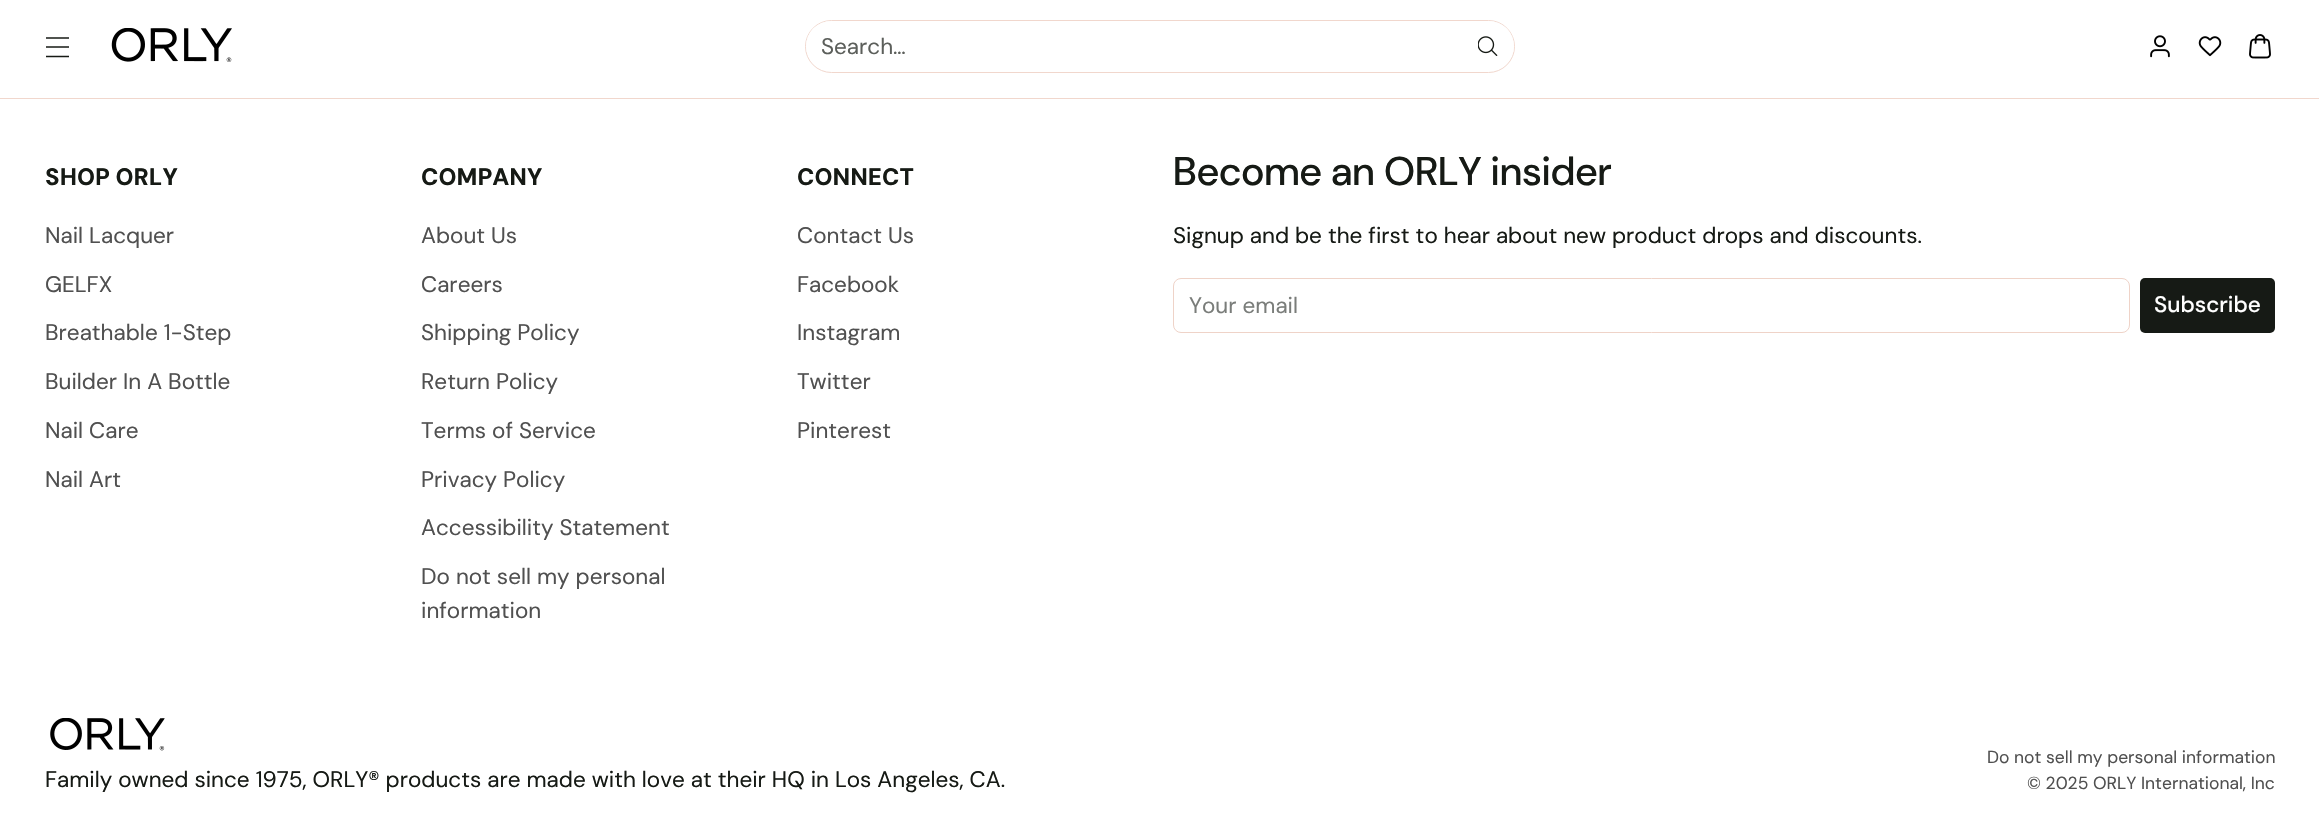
#include "include/core/SkBlurTypes.h"
#include "include/core/SkCanvas.h"
#include "include/core/SkData.h"
#include "include/core/SkFont.h"
#include "include/core/SkFontMgr.h"
#include "include/core/SkImage.h"
#include "include/core/SkMaskFilter.h"
#include "include/core/SkPaint.h"
#include "include/core/SkPathBuilder.h"
#include "include/core/SkTextBlob.h"
#include "include/effects/SkDashPathEffect.h"
#include "include/effects/SkGradientShader.h"
#include "include/utils/SkParsePath.h"

extern sk_sp<SkFontMgr> fontMgr;

void draw(SkCanvas* canvas) {
  SkPaint p;
  p.setAntiAlias(true);
  canvas->clear(SK_ColorWHITE);
  p.setStyle(SkPaint::kStroke_Style);
  p.setStrokeWidth(1.6f);
  p.setColor(SkColorSetRGB(22, 26, 21));
  canvas->drawPath(SkPathBuilder().moveTo(46, 47).lineTo(69, 47).moveTo(46, 38).lineTo(69, 38).moveTo(46, 56.5f).lineTo(69, 56.5f).detach(), p);
  canvas->drawImageRect(SkImages::DeferredFromEncodedData(SkData::MakeFromFileName("images/1.png")), SkRect::MakeLTRB(111, 28, 232, 62), SkSamplingOptions());
  p.setStrokeWidth(1);
  p.setColor(SkColorSetRGB(241, 215, 205));
  canvas->drawRoundRect(SkRect::MakeLTRB(805.5f, 20.5f, 1514.5f, 72.5f), 26, 26, p);
  p.setStyle(SkPaint::kFill_Style);
  p.setColor(SK_ColorWHITE);
  canvas->drawRoundRect(SkRect::MakeLTRB(806, 21, 1514, 71), 25, 25, p);
  canvas->drawImageRect(SkImages::DeferredFromEncodedData(SkData::MakeFromFileName("images/2.png")), SkRect::MakeLTRB(1478, 36, 1498, 56), SkSamplingOptions());
  canvas->drawImageRect(SkImages::DeferredFromEncodedData(SkData::MakeFromFileName("images/3.png")), SkRect::MakeLTRB(2150, 35, 2170, 58), SkSamplingOptions());
  canvas->drawImageRect(SkImages::DeferredFromEncodedData(SkData::MakeFromFileName("images/4.png")), SkRect::MakeLTRB(2198, 36, 2222, 57), SkSamplingOptions());
  canvas->drawImageRect(SkImages::DeferredFromEncodedData(SkData::MakeFromFileName("images/5.png")), SkRect::MakeLTRB(2249, 34, 2271, 59), SkSamplingOptions());
  p.setColor(SkColorSetRGB(241, 215, 205));
  canvas->drawRect(SkRect::MakeLTRB(0, 98, 2319, 99), p);
  p.setStyle(SkPaint::kStroke_Style);
  p.setColor(SkColorSetRGB(239, 211, 200));
  canvas->drawRoundRect(SkRect::MakeLTRB(1173.5f, 278.5f, 2129.5f, 332.5f), 7.5f, 7.5f, p);
  p.setStyle(SkPaint::kFill_Style);
  p.setColor(SkColorSetRGB(22, 26, 21));
  canvas->drawRoundRect(SkRect::MakeLTRB(2140, 278, 2275, 333), 5, 5, p);
  canvas->drawImageRect(SkImages::DeferredFromEncodedData(SkData::MakeFromFileName("images/6.png")), SkRect::MakeLTRB(50, 718, 165, 751), SkSamplingOptions());
  SkFont font1(fontMgr->matchFamilyStyle("DM Sans", SkFontStyle::Normal()), 22.5f);
  font1.setSubpixel(true);
  p.setColor(SkColorSetRGB(92, 95, 91));
  canvas->drawString("Search…", 821, 54, font1, p);
  SkFont font2(fontMgr->matchFamilyStyle("DM Sans", SkFontStyle(800, SkFontStyle::kNormal_Width, SkFontStyle::kUpright_Slant)), 23.75f);
  font2.setSubpixel(true);
  p.setColor(SkColorSetRGB(22, 26, 21));
  canvas->drawString("SHOP ORLY", 45, 185, font2, p);
  p.setColor(SkColorSetRGB(80, 80, 80));
  canvas->drawString("Nail Lacquer", 45, 243, font1, p);
  canvas->drawString("GELFX", 45, 292, font1, p);
  canvas->drawString("Breathable 1-Step", 45, 340, font1, p);
  canvas->drawString("Builder In A Bottle", 45, 389, font1, p);
  canvas->drawString("Nail Care", 45, 438, font1, p);
  canvas->drawString("Nail Art", 45, 487, font1, p);
  p.setColor(SkColorSetRGB(22, 26, 21));
  canvas->drawString("COMPANY", 421, 185, font2, p);
  p.setColor(SkColorSetRGB(80, 80, 80));
  canvas->drawString("About Us", 421, 243, font1, p);
  canvas->drawString("Careers", 421, 292, font1, p);
  canvas->drawString("Shipping Policy", 421, 340, font1, p);
  canvas->drawString("Return Policy", 421, 389, font1, p);
  canvas->drawString("Terms of Service", 421, 438, font1, p);
  canvas->drawString("Privacy Policy", 421, 487, font1, p);
  canvas->drawString("Accessibility Statement", 421, 535, font1, p);
  canvas->drawString("Do not sell my personal", 421, 584, font1, p);
  canvas->drawString("information", 421, 618, font1, p);
  p.setColor(SkColorSetRGB(22, 26, 21));
  canvas->drawString("CONNECT", 797, 185, font2, p);
  p.setColor(SkColorSetRGB(80, 80, 80));
  canvas->drawString("Contact Us", 797, 243, font1, p);
  canvas->drawString("Facebook", 797, 292, font1, p);
  canvas->drawString("Instagram", 797, 340, font1, p);
  canvas->drawString("Twitter", 797, 389, font1, p);
  canvas->drawString("Pinterest", 797, 438, font1, p);
  SkFont font3(fontMgr->matchFamilyStyle("DM Sans", SkFontStyle(500, SkFontStyle::kNormal_Width, SkFontStyle::kUpright_Slant)), 40);
  font3.setSubpixel(true);
  p.setColor(SkColorSetRGB(22, 26, 21));
  canvas->drawString("Become an ORLY insider", 1173, 185, font3, p);
  canvas->drawString("Signup and be the first to hear about new product drops and discounts.", 1173, 243, font1, p);
  p.setColor(SkColorSetRGB(122, 125, 122));
  canvas->drawString("Your email", 1189, 313, font1, p);
  SkFont font4(fontMgr->matchFamilyStyle("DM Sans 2", SkFontStyle(500, SkFontStyle::kNormal_Width, SkFontStyle::kUpright_Slant)), 22.5f);
  font4.setSubpixel(true);
  p.setColor(SK_ColorWHITE);
  canvas->drawString("Subscribe", 2154, 312, font4, p);
  p.setColor(SkColorSetRGB(22, 26, 21));
  canvas->drawString("Family owned since 1975, ORLY® products are made with love at their HQ in Los Angeles, CA.", 45, 787, font1, p);
  SkFont font5(fontMgr->matchFamilyStyle("DM Sans 2", SkFontStyle::Normal()), 17.5f);
  font5.setSubpixel(true);
  p.setColor(SkColorSetRGB(80, 80, 80));
  canvas->drawString("Do not sell my personal information", 1987, 763, font5, p);
  canvas->drawString("© 2025 ORLY International, Inc", 2027, 789, font5, p);
}
